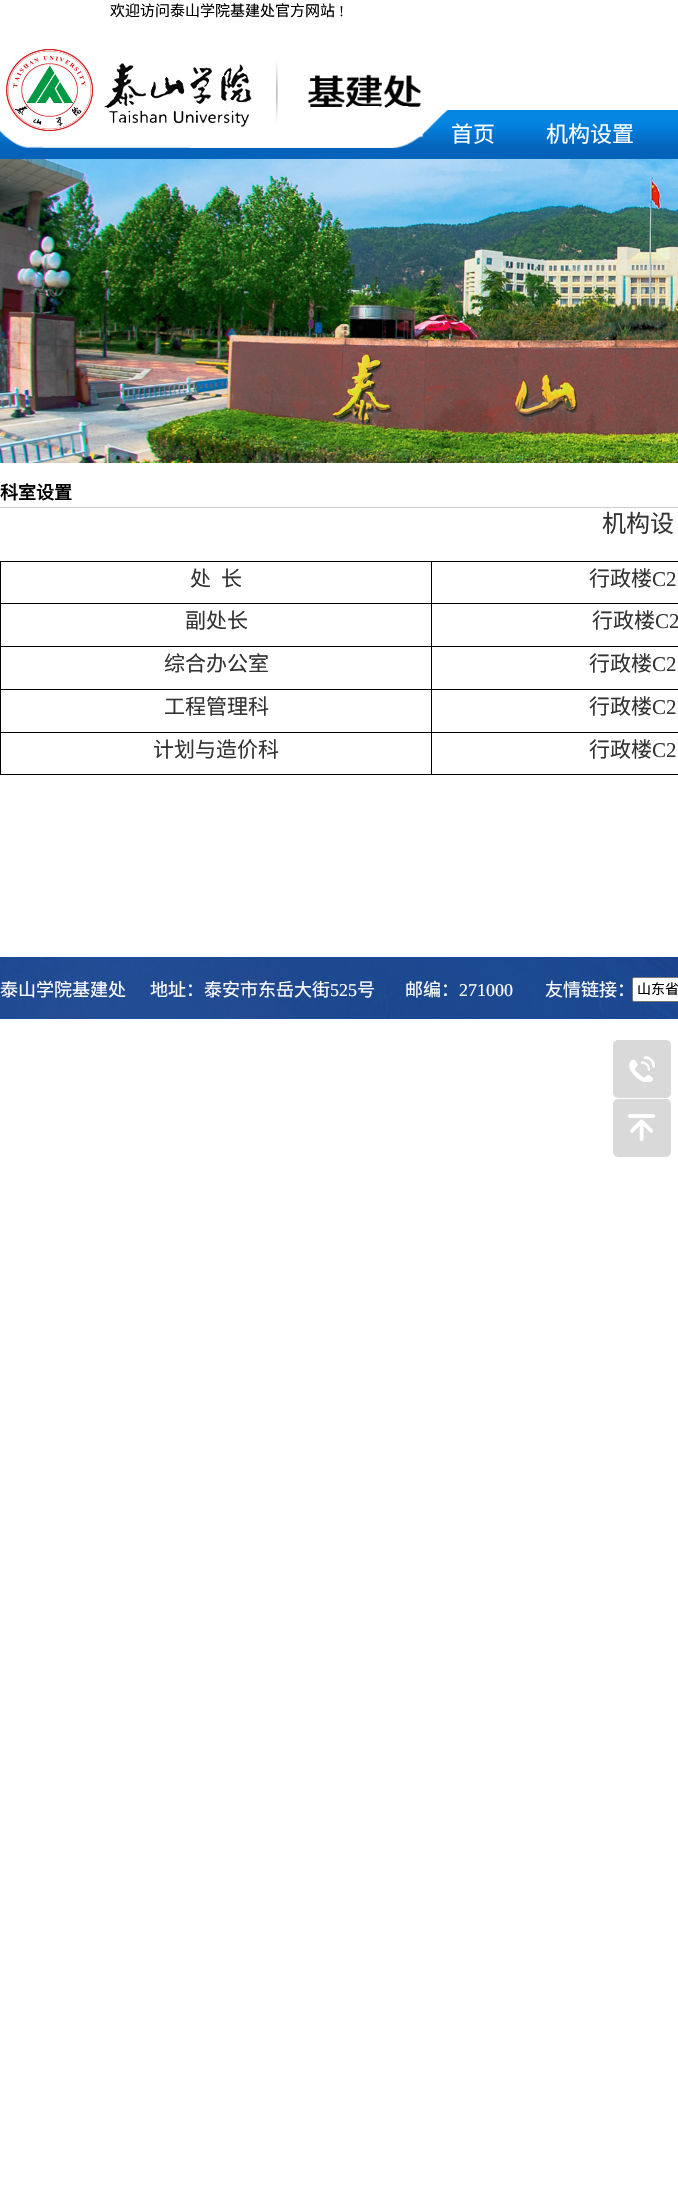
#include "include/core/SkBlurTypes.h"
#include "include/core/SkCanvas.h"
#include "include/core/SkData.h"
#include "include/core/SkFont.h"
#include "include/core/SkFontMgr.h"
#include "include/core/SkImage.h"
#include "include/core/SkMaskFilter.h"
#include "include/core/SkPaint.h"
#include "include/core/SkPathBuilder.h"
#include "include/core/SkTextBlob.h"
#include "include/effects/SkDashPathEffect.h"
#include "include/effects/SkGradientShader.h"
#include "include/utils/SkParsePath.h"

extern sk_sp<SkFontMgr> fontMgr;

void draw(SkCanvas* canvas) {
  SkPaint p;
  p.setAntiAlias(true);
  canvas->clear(SK_ColorWHITE);
  canvas->drawImageRect(SkImages::DeferredFromEncodedData(SkData::MakeFromFileName("images/2.png")), SkRect::MakeLTRB(0, 110, 678, 159), SkSamplingOptions());
  canvas->drawImageRect(SkImages::DeferredFromEncodedData(SkData::MakeFromFileName("images/1.png")), SkRect::MakeLTRB(0, 48, 448, 148), SkSamplingOptions());
  canvas->drawImageRect(SkImages::DeferredFromEncodedData(SkData::MakeFromFileName("images/3.png")), SkRect::MakeLTRB(0, 159, 678, 463), SkSamplingOptions());
  p.setColor(SkColorSetRGB(202, 206, 211));
  canvas->drawRect(SkRect::MakeLTRB(0, 507, 678, 508), p);
  p.setColor(SK_ColorBLACK);
  canvas->drawRect(SkRect::MakeLTRB(431, 561, 678, 562), p);
  canvas->drawRect(SkRect::MakeLTRB(431, 603, 678, 604), p);
  canvas->drawRect(SkRect::MakeLTRB(431, 646, 678, 647), p);
  canvas->drawRect(SkRect::MakeLTRB(431, 689, 678, 690), p);
  canvas->drawRect(SkRect::MakeLTRB(431, 732, 678, 733), p);
  canvas->drawRect(SkRect::MakeLTRB(431, 774, 678, 775), p);
  canvas->drawRect(SkRect::MakeLTRB(431, 732, 432, 775), p);
  canvas->drawRect(SkRect::MakeLTRB(0, 732, 432, 733), p);
  canvas->drawRect(SkRect::MakeLTRB(431, 689, 432, 733), p);
  canvas->drawRect(SkRect::MakeLTRB(0, 689, 432, 690), p);
  canvas->drawRect(SkRect::MakeLTRB(431, 646, 432, 690), p);
  canvas->drawRect(SkRect::MakeLTRB(0, 646, 432, 647), p);
  canvas->drawRect(SkRect::MakeLTRB(431, 603, 432, 647), p);
  canvas->drawRect(SkRect::MakeLTRB(0, 603, 432, 604), p);
  canvas->drawRect(SkRect::MakeLTRB(431, 561, 432, 604), p);
  canvas->drawRect(SkRect::MakeLTRB(0, 561, 432, 562), p);
  canvas->drawRect(SkRect::MakeLTRB(0, 774, 432, 775), p);
  canvas->drawRect(SkRect::MakeLTRB(0, 732, 1, 775), p);
  canvas->drawRect(SkRect::MakeLTRB(0, 689, 1, 733), p);
  canvas->drawRect(SkRect::MakeLTRB(0, 646, 1, 690), p);
  canvas->drawRect(SkRect::MakeLTRB(0, 603, 1, 647), p);
  canvas->drawRect(SkRect::MakeLTRB(0, 561, 1, 604), p);
  canvas->drawImageRect(SkImages::DeferredFromEncodedData(SkData::MakeFromFileName("images/4.png")), SkRect::MakeLTRB(0, 957, 678, 1019), SkSamplingOptions());
  p.setColor(SK_ColorWHITE);
  canvas->drawRoundRect(SkRect::MakeLTRB(632.5f, 977.5f, 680.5f, 1001.5f), 1.5f, 1.5f, p);
  p.setStyle(SkPaint::kStroke_Style);
  p.setStrokeWidth(1);
  p.setColor(SkColorSetRGB(118, 118, 118));
  canvas->drawRoundRect(SkRect::MakeLTRB(632.5f, 977.5f, 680.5f, 1001.5f), 1.5f, 1.5f, p);
  p.setStyle(SkPaint::kFill_Style);
  p.setColor(SkColorSetRGB(217, 217, 217));
  canvas->drawRoundRect(SkRect::MakeLTRB(613, 1040, 671, 1098), 5, 5, p);
  canvas->drawImageRect(SkImages::DeferredFromEncodedData(SkData::MakeFromFileName("images/5.png")), SkRect::MakeLTRB(629, 1056, 655, 1082), SkSamplingOptions());
  canvas->drawRoundRect(SkRect::MakeLTRB(613, 1099, 671, 1157), 5, 5, p);
  canvas->drawImageRect(SkImages::DeferredFromEncodedData(SkData::MakeFromFileName("images/6.png")), SkRect::MakeLTRB(628, 1114, 655, 1141), SkSamplingOptions());
  SkFont font1(fontMgr->matchFamilyStyle("Noto Sans CJK SC", SkFontStyle::Normal()), 15);
  font1.setSubpixel(true);
  p.setColor(SK_ColorBLACK);
  canvas->drawString("欢迎访问泰山学院基建处官方网站", 110, 16, font1, p);
  SkFont font2(fontMgr->matchFamilyStyle("Liberation Serif", SkFontStyle::Normal()), 15);
  font2.setSubpixel(true);
  canvas->drawString("!", 339, 16, font2, p);
  SkFont font3(fontMgr->matchFamilyStyle("Noto Sans CJK SC", SkFontStyle::Normal()), 22);
  font3.setSubpixel(true);
  p.setColor(SK_ColorWHITE);
  canvas->drawString("首页", 451, 142, font3, p);
  canvas->drawString("机构设置", 546, 142, font3, p);
  SkFont font4(fontMgr->matchFamilyStyle("Noto Sans CJK SC", SkFontStyle::Bold()), 18);
  font4.setSubpixel(true);
  p.setColor(SK_ColorBLACK);
  canvas->drawString("科室设置", 0, 499, font4, p);
  SkFont font5(fontMgr->matchFamilyStyle("Noto Sans CJK SC", SkFontStyle::Normal()), 24);
  font5.setSubpixel(true);
  p.setColor(SkColorSetRGB(51, 51, 51));
  canvas->drawString("机构设", 602, 532, font5, p);
  SkFont font6(fontMgr->matchFamilyStyle("Noto Sans CJK SC", SkFontStyle::Normal()), 21);
  font6.setSubpixel(true);
  canvas->drawString("处", 190, 586, font6, p);
  canvas->drawString("长", 221, 586, font6, p);
  canvas->drawString("行政楼", 589, 586, font6, p);
  SkFont font7(fontMgr->matchFamilyStyle("Liberation Serif", SkFontStyle::Normal()), 21);
  font7.setSubpixel(true);
  canvas->drawString("C2", 652, 586, font7, p);
  canvas->drawString("副处长", 185, 628, font6, p);
  canvas->drawString("行政楼", 592, 628, font6, p);
  canvas->drawString("C2", 655, 628, font7, p);
  canvas->drawString("综合办公室", 164, 671, font6, p);
  canvas->drawString("行政楼", 589, 671, font6, p);
  canvas->drawString("C2", 652, 671, font7, p);
  canvas->drawString("工程管理科", 164, 714, font6, p);
  canvas->drawString("行政楼", 589, 714, font6, p);
  canvas->drawString("C2", 652, 714, font7, p);
  canvas->drawString("计划与造价科", 153, 757, font6, p);
  canvas->drawString("行政楼", 589, 757, font6, p);
  canvas->drawString("C2", 652, 757, font7, p);
  SkFont font8(fontMgr->matchFamilyStyle("Noto Sans CJK SC", SkFontStyle::Normal()), 18);
  font8.setSubpixel(true);
  p.setColor(SK_ColorWHITE);
  canvas->drawString("泰山学院基建处", 0, 996, font8, p);
  canvas->drawString("地址：泰安市东岳大街", 150, 996, font8, p);
  SkFont font9(fontMgr->matchFamilyStyle("Liberation Serif", SkFontStyle::Normal()), 18);
  font9.setSubpixel(true);
  canvas->drawString("525", 330, 996, font9, p);
  canvas->drawString("号", 357, 996, font8, p);
  canvas->drawString("邮编：", 405, 996, font8, p);
  canvas->drawString("271000", 459, 996, font9, p);
  canvas->drawString("友情链接：", 545, 996, font8, p);
  SkFont font10(fontMgr->matchFamilyStyle("Noto Sans CJK SC", SkFontStyle::Normal()), 14);
  font10.setSubpixel(true);
  p.setColor(SK_ColorBLACK);
  canvas->drawString("山东省", 637, 994, font10, p);
}
